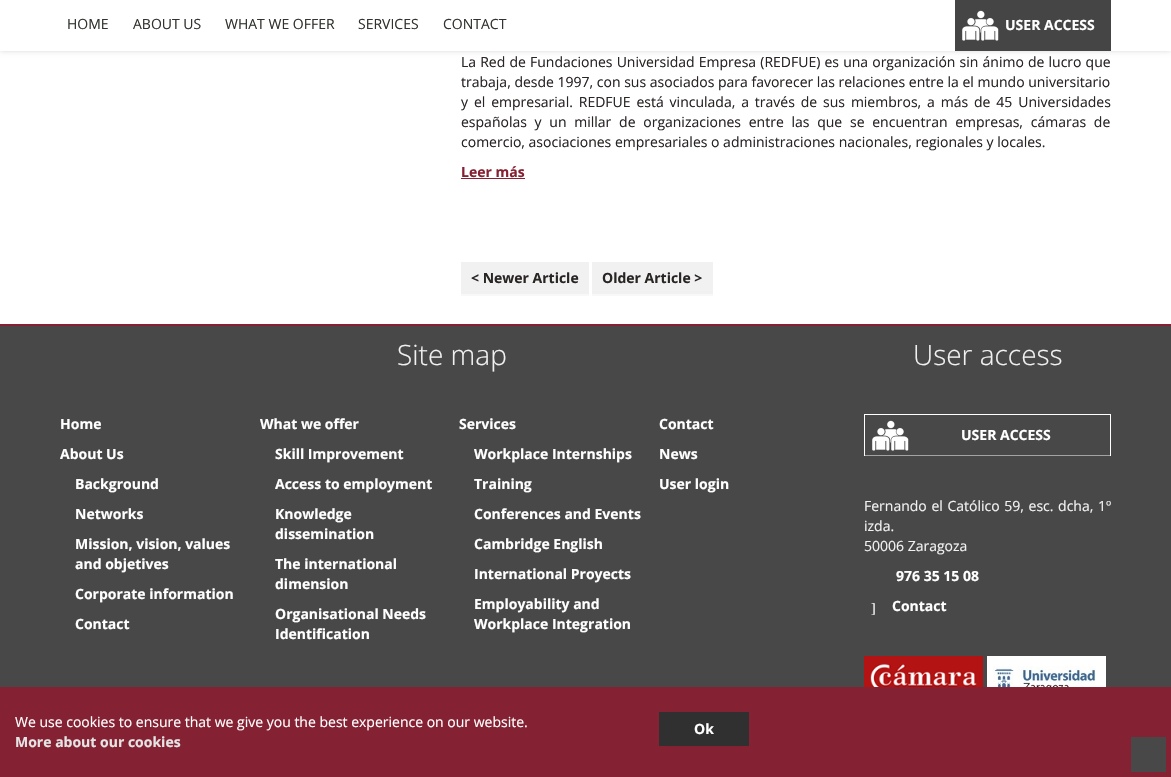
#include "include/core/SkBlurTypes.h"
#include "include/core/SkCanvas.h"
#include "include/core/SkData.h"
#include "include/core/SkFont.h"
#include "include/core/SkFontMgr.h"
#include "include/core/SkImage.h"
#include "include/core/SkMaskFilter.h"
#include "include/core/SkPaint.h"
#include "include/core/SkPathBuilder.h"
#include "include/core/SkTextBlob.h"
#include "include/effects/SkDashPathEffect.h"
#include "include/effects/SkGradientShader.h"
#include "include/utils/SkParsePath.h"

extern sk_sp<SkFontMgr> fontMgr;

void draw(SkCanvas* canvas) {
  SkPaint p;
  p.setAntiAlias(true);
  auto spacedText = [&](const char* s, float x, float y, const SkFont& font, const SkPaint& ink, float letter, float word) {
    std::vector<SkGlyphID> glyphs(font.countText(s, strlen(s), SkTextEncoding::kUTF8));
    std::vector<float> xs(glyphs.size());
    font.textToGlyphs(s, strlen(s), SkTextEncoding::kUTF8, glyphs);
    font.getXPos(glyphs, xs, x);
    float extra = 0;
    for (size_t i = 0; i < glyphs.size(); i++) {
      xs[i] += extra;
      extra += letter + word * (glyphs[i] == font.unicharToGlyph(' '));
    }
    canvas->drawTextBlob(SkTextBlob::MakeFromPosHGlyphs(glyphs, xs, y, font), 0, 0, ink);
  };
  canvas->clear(SkColorSetRGB(72, 72, 72));
  p.setColor(SK_ColorWHITE);
  canvas->drawRect(SkRect::MakeLTRB(0, 51, 1171, 324), p);
  p.setColor(SkColorSetARGB(38, 0, 0, 0));
  p.setMaskFilter(SkMaskFilter::MakeBlur(kNormal_SkBlurStyle, 2.5f));
  canvas->drawRect(SkRect::MakeLTRB(0, 0, 1171, 51), p);
  p.setMaskFilter(nullptr);
  p.setColor(SK_ColorWHITE);
  canvas->drawRect(SkRect::MakeLTRB(0, 0, 1171, 51), p);
  p.setColor(SkColorSetRGB(69, 69, 69));
  canvas->drawRect(SkRect::MakeLTRB(955, 0, 1111, 51), p);
  canvas->drawImageRect(SkImages::DeferredFromEncodedData(SkData::MakeFromFileName("images/1.png")), SkRect::MakeLTRB(962, 10, 999, 41), SkSamplingOptions());
  p.setColor(SkColorSetRGB(132, 33, 51));
  canvas->drawRect(SkRect::MakeLTRB(461, 178, 525, 179), p);
  p.setColor(SkColorSetRGB(241, 241, 241));
  canvas->drawRect(SkRect::MakeLTRB(461, 262, 589, 294), p);
  p.setColor(SkColorSetRGB(248, 248, 248));
  canvas->drawRect(SkRect::MakeLTRB(461, 294, 589, 296), p);
  p.setColor(SkColorSetRGB(241, 241, 241));
  canvas->drawRect(SkRect::MakeLTRB(592, 262, 713, 294), p);
  p.setColor(SkColorSetRGB(248, 248, 248));
  canvas->drawRect(SkRect::MakeLTRB(592, 294, 713, 296), p);
  p.setColor(SkColorSetRGB(132, 33, 51));
  canvas->drawRect(SkRect::MakeLTRB(0, 324, 1171, 326), p);
  canvas->drawImageRect(SkImages::DeferredFromEncodedData(SkData::MakeFromFileName("images/2.png")), SkRect::MakeLTRB(872, 420, 909, 451), SkSamplingOptions());
  p.setStyle(SkPaint::kStroke_Style);
  p.setStrokeWidth(1);
  p.setColor(SK_ColorWHITE);
  canvas->drawRect(SkRect::MakeLTRB(864.5f, 414.5f, 1110.5f, 455.5f), p);
  p.setStyle(SkPaint::kFill_Style);
  p.setColor(SkColorSetARGB(128, 72, 72, 72));
  canvas->drawRect(SkRect::MakeLTRB(865, 455, 1110, 456), p);
  p.setColor(SkColorSetRGB(179, 19, 19));
  canvas->drawRect(SkRect::MakeLTRB(864, 656, 983, 687), p);
  canvas->drawImageRect(SkImages::DeferredFromEncodedData(SkData::MakeFromFileName("images/3.png")), SkRect::MakeLTRB(870, 664, 977, 687), SkSamplingOptions());
  p.setColor(SK_ColorWHITE);
  canvas->drawRect(SkRect::MakeLTRB(987, 656, 1106, 687), p);
  canvas->drawImageRect(SkImages::DeferredFromEncodedData(SkData::MakeFromFileName("images/4.png")), SkRect::MakeLTRB(993, 666, 1096, 687), SkSamplingOptions());
  p.setColor(SkColorSetRGB(132, 33, 51));
  canvas->drawRect(SkRect::MakeLTRB(0, 687, 1171, 777), p);
  p.setColor(SkColorSetRGB(48, 48, 48));
  canvas->drawRect(SkRect::MakeLTRB(659, 712, 749, 746), p);
  p.setColor(SkColorSetRGB(72, 72, 72));
  canvas->drawRect(SkRect::MakeLTRB(1131, 737, 1166, 772), p);
  SkFont font1(fontMgr->matchFamilyStyle("Open Sans", SkFontStyle::Normal()), 14);
  font1.setSubpixel(true);
  p.setColor(SkColorSetRGB(49, 52, 46));
  canvas->drawString("HOME", 67, 29, font1, p);
  canvas->drawString("ABOUT US", 133, 29, font1, p);
  canvas->drawString("WHAT WE OFFER", 225, 29, font1, p);
  canvas->drawString("SERVICES", 358, 29, font1, p);
  canvas->drawString("CONTACT", 443, 29, font1, p);
  SkFont font2(fontMgr->matchFamilyStyle("Open Sans", SkFontStyle::Bold()), 14);
  font2.setSubpixel(true);
  p.setColor(SK_ColorWHITE);
  canvas->drawString("USER ACCESS", 1005, 30, font2, p);
  p.setColor(SkColorSetRGB(42, 37, 37));
  spacedText("La Red de Fundaciones Universidad Empresa (REDFUE) es una organización sin ánimo de lucro que", 461, 67, font1, p, 0, 0.5f);
  canvas->drawString("trabaja, desde 1997, con sus asociados para favorecer las relaciones entre la el mundo universitario", 461, 87, font1, p);
  spacedText("y el empresarial. REDFUE está vinculada, a través de sus miembros, a más de 45 Universidades", 461, 107, font1, p, 0, 2.25f);
  spacedText("españolas y un millar de organizaciones entre las que se encuentran empresas, cámaras de", 461, 127, font1, p, 0, 4.1f);
  canvas->drawString("comercio, asociaciones empresariales o administraciones nacionales, regionales y locales.", 461, 147, font1, p);
  p.setColor(SkColorSetRGB(132, 33, 51));
  canvas->drawString("Leer más", 461, 177, font2, p);
  p.setColor(SkColorSetRGB(42, 37, 37));
  canvas->drawString("< Newer Article", 471, 283, font2, p);
  canvas->drawString("Older Article >", 602, 283, font2, p);
  SkFont font3(fontMgr->matchFamilyStyle("Open Sans", SkFontStyle(300, SkFontStyle::kNormal_Width, SkFontStyle::kUpright_Slant)), 28);
  font3.setSubpixel(true);
  p.setColor(SkColorSetRGB(241, 241, 241));
  canvas->drawString("Site map", 397, 365, font3, p);
  p.setColor(SK_ColorWHITE);
  canvas->drawString("Home", 60, 429, font2, p);
  canvas->drawString("About Us", 60, 459, font2, p);
  canvas->drawString("Background", 75, 489, font2, p);
  canvas->drawString("Networks", 75, 519, font2, p);
  canvas->drawString("Mission, vision, values", 75, 549, font2, p);
  canvas->drawString("and objetives", 75, 569, font2, p);
  canvas->drawString("Corporate information", 75, 599, font2, p);
  canvas->drawString("Contact", 75, 629, font2, p);
  canvas->drawString("What we offer", 260, 429, font2, p);
  canvas->drawString("Skill Improvement", 275, 459, font2, p);
  canvas->drawString("Access to employment", 275, 489, font2, p);
  canvas->drawString("Knowledge", 275, 519, font2, p);
  canvas->drawString("dissemination", 275, 539, font2, p);
  canvas->drawString("The international", 275, 569, font2, p);
  canvas->drawString("dimension", 275, 589, font2, p);
  canvas->drawString("Organisational Needs", 275, 619, font2, p);
  canvas->drawString("Identification", 275, 639, font2, p);
  canvas->drawString("Services", 459, 429, font2, p);
  canvas->drawString("Workplace Internships", 474, 459, font2, p);
  canvas->drawString("Training", 474, 489, font2, p);
  canvas->drawString("Conferences and Events", 474, 519, font2, p);
  canvas->drawString("Cambridge English", 474, 549, font2, p);
  canvas->drawString("International Proyects", 474, 579, font2, p);
  canvas->drawString("Employability and", 474, 609, font2, p);
  canvas->drawString("Workplace Integration", 474, 629, font2, p);
  canvas->drawString("Contact", 659, 429, font2, p);
  canvas->drawString("News", 659, 459, font2, p);
  canvas->drawString("User login", 659, 489, font2, p);
  p.setColor(SkColorSetRGB(241, 241, 241));
  canvas->drawString("User access", 913, 365, font3, p);
  p.setColor(SK_ColorWHITE);
  canvas->drawString("USER ACCESS", 961, 440, font2, p);
  p.setColor(SkColorSetRGB(241, 241, 241));
  spacedText("Fernando el Católico 59, esc. dcha, 1º", 864, 511, font1, p, 0, 1);
  canvas->drawString("izda.", 864, 531, font1, p);
  canvas->drawString("50006 Zaragoza", 864, 551, font1, p);
  p.setColor(SK_ColorWHITE);
  canvas->drawString("976 35 15 08", 896, 581, font2, p);
  SkFont font4(fontMgr->matchFamilyStyle("Liberation Serif", SkFontStyle::Normal()), 14);
  font4.setSubpixel(true);
  canvas->drawString("]", 871, 613, font4, p);
  canvas->drawString("Contact", 892, 611, font2, p);
  canvas->drawString("We use cookies to ensure that we give you the best experience on our website.", 15, 727, font1, p);
  p.setColor(SkColorSetRGB(228, 228, 228));
  canvas->drawString("More about our cookies", 15, 747, font2, p);
  p.setColor(SK_ColorWHITE);
  canvas->drawString("Ok", 694, 734, font2, p);
}
